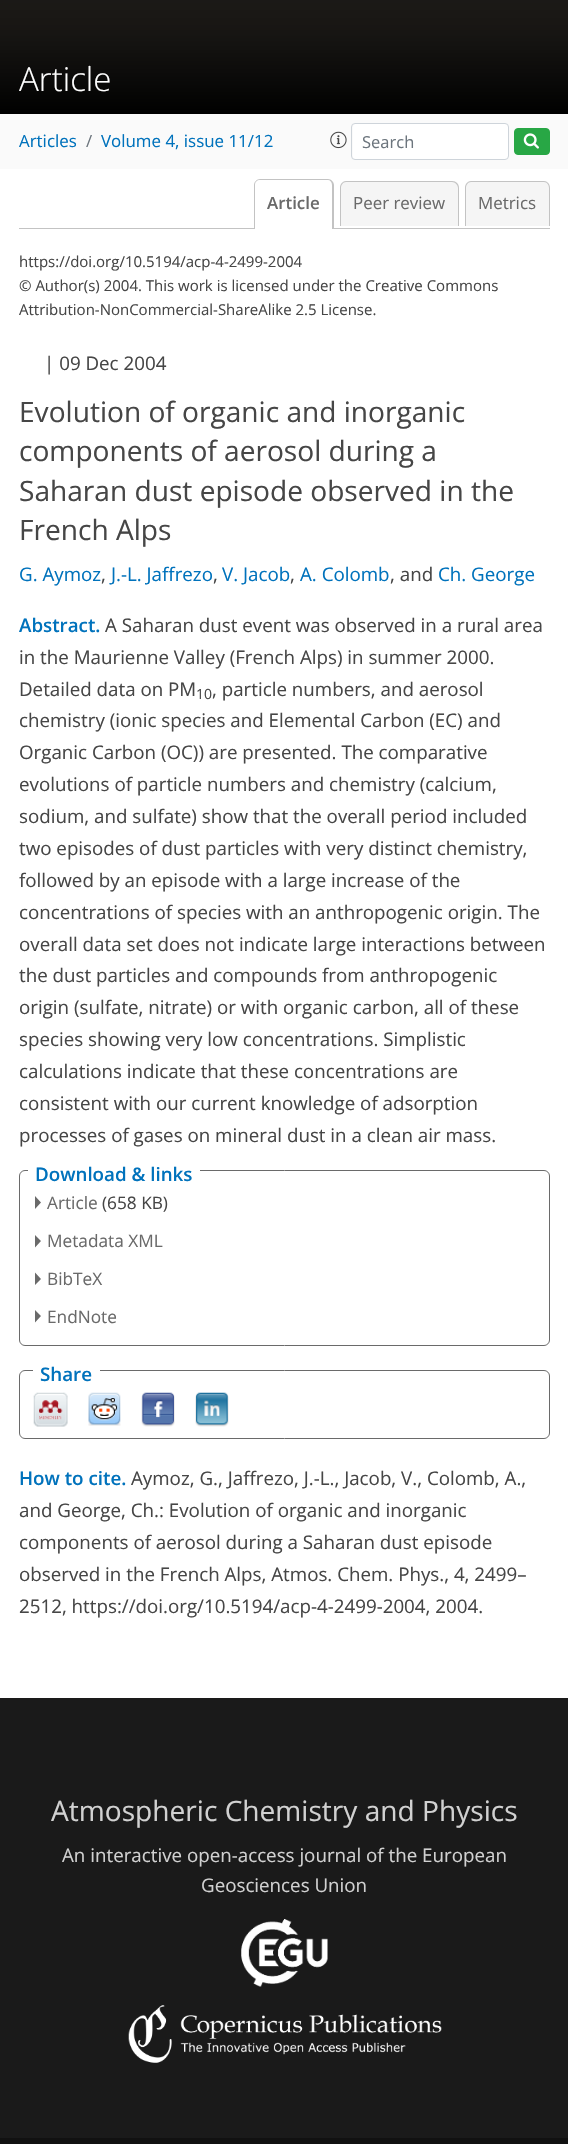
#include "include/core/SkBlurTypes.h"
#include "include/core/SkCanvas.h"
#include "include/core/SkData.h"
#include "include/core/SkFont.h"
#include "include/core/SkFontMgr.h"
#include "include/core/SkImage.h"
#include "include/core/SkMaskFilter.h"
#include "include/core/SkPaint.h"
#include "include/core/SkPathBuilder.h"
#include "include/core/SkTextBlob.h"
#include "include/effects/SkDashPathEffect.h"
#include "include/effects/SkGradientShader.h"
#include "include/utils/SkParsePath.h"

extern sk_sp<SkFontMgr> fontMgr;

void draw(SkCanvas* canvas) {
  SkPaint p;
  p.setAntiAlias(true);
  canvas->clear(SK_ColorWHITE);
  {
    const SkColor colors[] = {SK_ColorBLACK, SkColorSetRGB(7, 7, 6), SkColorSetRGB(13, 12, 11), SkColorSetRGB(17, 16, 14), SkColorSetRGB(20, 19, 17), SkColorSetRGB(23, 21, 19), SkColorSetRGB(25, 23, 20), SkColorSetRGB(26, 24, 21), SkColorSetRGB(27, 25, 22), SkColorSetRGB(27, 25, 23), SkColorSetRGB(28, 26, 23), SkColorSetRGB(28, 26, 23)};
    const float stops[] = {0, 0.19f, 0.34f, 0.47f, 0.56f, 0.65f, 0.73f, 0.8f, 0.86f, 0.91f, 0.95f, 1};
    const SkPoint ends[] = {{284, 114}, {284, -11}};
    p.setShader(SkGradientShader::MakeLinear(ends, colors, stops, 12, SkTileMode::kClamp));
    p.setAlpha(255);
  }
  canvas->drawRect(SkRect::MakeLTRB(0, 0, 568, 114), p);
  p.setShader(nullptr);
  p.setColor(SkColorSetRGB(250, 250, 250));
  canvas->drawRect(SkRect::MakeLTRB(0, 114, 568, 169), p);
  canvas->drawImageRect(SkImages::DeferredFromEncodedData(SkData::MakeFromFileName("images/1.png")), SkRect::MakeLTRB(330, 131, 347, 149), SkSamplingOptions());
  p.setColor(SK_ColorWHITE);
  canvas->drawRoundRect(SkRect::MakeLTRB(353, 124, 508, 159), 2.5f, 2.5f, p);
  p.setStyle(SkPaint::kStroke_Style);
  p.setStrokeWidth(1);
  p.setColor(SkColorSetRGB(206, 212, 218));
  canvas->drawRoundRect(SkRect::MakeLTRB(351.5f, 123.5f, 508.5f, 159.5f), 3.5f, 3.5f, p);
  p.setStyle(SkPaint::kFill_Style);
  p.setColor(SkColorSetRGB(40, 167, 69));
  canvas->drawRoundRect(SkRect::MakeLTRB(514.5f, 128.5f, 549.5f, 154.5f), 3.5f, 3.5f, p);
  p.setStyle(SkPaint::kStroke_Style);
  canvas->drawRoundRect(SkRect::MakeLTRB(514.5f, 128.5f, 549.5f, 154.5f), 3.5f, 3.5f, p);
  canvas->drawImageRect(SkImages::DeferredFromEncodedData(SkData::MakeFromFileName("images/2.png")), SkRect::MakeLTRB(523, 133, 539, 149), SkSamplingOptions());
  p.setStyle(SkPaint::kFill_Style);
  p.setColor(SkColorSetRGB(195, 195, 195));
  canvas->drawRect(SkRect::MakeLTRB(19, 228, 550, 229), p);
  p.setColor(SK_ColorWHITE);
  canvas->drawPath(SkPathBuilder().moveTo(260, 179).lineTo(328, 179).cubicTo(331.5f, 179, 334, 181.5f, 334, 185).lineTo(334, 229).lineTo(254, 229).lineTo(254, 185).cubicTo(254, 181.5f, 256.5f, 179, 260, 179).close().detach(), p);
  p.setColor(SkColorSetRGB(195, 195, 195));
  canvas->drawPath(SkPathBuilder(SkPathFillType::kEvenOdd).moveTo(260, 179).lineTo(328, 179).cubicTo(331, 179, 334, 182, 334, 185).lineTo(334, 229).lineTo(254, 229).lineTo(254, 185).cubicTo(254, 182, 257, 179, 260, 179).close().moveTo(260, 180).lineTo(328, 180).cubicTo(330, 180, 332, 182, 332, 185).lineTo(332, 229).lineTo(255, 229).lineTo(255, 185).cubicTo(255, 182, 257, 180, 260, 180).close().detach(), p);
  p.setColor(SkColorSetRGB(245, 245, 245));
  canvas->drawPath(SkPathBuilder().moveTo(346, 181).lineTo(453, 181).cubicTo(456.5f, 181, 459, 183.5f, 459, 187).lineTo(459, 226).lineTo(340, 226).lineTo(340, 187).cubicTo(340, 183.5f, 342.5f, 181, 346, 181).close().detach(), p);
  p.setColor(SkColorSetRGB(195, 195, 195));
  canvas->drawPath(SkPathBuilder(SkPathFillType::kEvenOdd).moveTo(346, 181).lineTo(452, 181).cubicTo(456, 181, 459, 184, 459, 188).lineTo(459, 226).lineTo(340, 226).lineTo(340, 188).cubicTo(340, 184, 343, 181, 346, 181).close().moveTo(346, 182).lineTo(452, 182).cubicTo(455, 182, 458, 185, 458, 188).lineTo(458, 226).lineTo(341, 226).lineTo(341, 188).cubicTo(341, 185, 343, 182, 346, 182).close().detach(), p);
  p.setColor(SkColorSetRGB(245, 245, 245));
  canvas->drawPath(SkPathBuilder().moveTo(471, 181).lineTo(544, 181).cubicTo(547.5f, 181, 550, 183.5f, 550, 187).lineTo(550, 226).lineTo(465, 226).lineTo(465, 187).cubicTo(465, 183.5f, 467.5f, 181, 471, 181).close().detach(), p);
  p.setColor(SkColorSetRGB(195, 195, 195));
  canvas->drawPath(SkPathBuilder(SkPathFillType::kEvenOdd).moveTo(471, 181).lineTo(544, 181).cubicTo(547, 181, 550, 184, 550, 188).lineTo(550, 226).lineTo(465, 226).lineTo(465, 188).cubicTo(465, 184, 468, 181, 471, 181).close().moveTo(471, 182).lineTo(544, 182).cubicTo(547, 182, 549, 185, 549, 188).lineTo(549, 226).lineTo(466, 226).lineTo(466, 188).cubicTo(466, 185, 468, 182, 471, 182).close().detach(), p);
  p.setStyle(SkPaint::kStroke_Style);
  p.setColor(SkColorSetRGB(106, 106, 106));
  canvas->drawRoundRect(SkRect::MakeLTRB(19.5f, 1170.5f, 549.5f, 1345.5f), 5.5f, 5.5f, p);
  p.setStyle(SkPaint::kFill_Style);
  p.setColor(SK_ColorWHITE);
  canvas->drawRect(SkRect::MakeLTRB(28, 1170, 200, 1171), p);
  p.setColor(SkColorSetRGB(106, 106, 106));
  canvas->drawPath(SkPathBuilder().moveTo(35, 1209).lineTo(35, 1196).lineTo(41, 1202.5f).close().moveTo(35, 1247.5f).lineTo(35, 1235).lineTo(41, 1241).close().detach(), p);
  canvas->drawPath(SkPathBuilder().moveTo(35, 1285).lineTo(35, 1272.5f).lineTo(41, 1279).close().moveTo(35, 1322.5f).lineTo(35, 1310).lineTo(41, 1316).close().detach(), p);
  p.setStyle(SkPaint::kStroke_Style);
  canvas->drawRoundRect(SkRect::MakeLTRB(19.5f, 1370.5f, 549.5f, 1438.5f), 5.5f, 5.5f, p);
  p.setStyle(SkPaint::kFill_Style);
  p.setColor(SK_ColorWHITE);
  canvas->drawRect(SkRect::MakeLTRB(33, 1370, 100, 1371), p);
  canvas->drawImageRect(SkImages::DeferredFromEncodedData(SkData::MakeFromFileName("images/3.png")), SkRect::MakeLTRB(33, 1392, 68, 1427), SkSamplingOptions());
  canvas->drawImageRect(SkImages::DeferredFromEncodedData(SkData::MakeFromFileName("images/4.png")), SkRect::MakeLTRB(88, 1392, 121, 1426), SkSamplingOptions());
  canvas->drawImageRect(SkImages::DeferredFromEncodedData(SkData::MakeFromFileName("images/5.png")), SkRect::MakeLTRB(141, 1392, 175, 1427), SkSamplingOptions());
  canvas->drawImageRect(SkImages::DeferredFromEncodedData(SkData::MakeFromFileName("images/6.png")), SkRect::MakeLTRB(195, 1392, 229, 1427), SkSamplingOptions());
  p.setColor(SkColorSetRGB(26, 26, 26));
  canvas->drawRect(SkRect::MakeLTRB(0, 1698, 568, 2138), p);
  canvas->drawImageRect(SkImages::DeferredFromEncodedData(SkData::MakeFromFileName("images/7.png")), SkRect::MakeLTRB(241, 1919, 328, 1987), SkSamplingOptions());
  canvas->drawImageRect(SkImages::DeferredFromEncodedData(SkData::MakeFromFileName("images/8.png")), SkRect::MakeLTRB(128, 2005, 442, 2063), SkSamplingOptions());
  p.setColor(SkColorSetRGB(17, 17, 17));
  canvas->drawRect(SkRect::MakeLTRB(0, 2138, 568, 2144), p);
  SkFont font1(fontMgr->matchFamilyStyle("Open Sans", SkFontStyle(300, SkFontStyle::kNormal_Width, SkFontStyle::kUpright_Slant)), 33);
  font1.setSubpixel(true);
  p.setColor(SK_ColorWHITE);
  canvas->drawString("Article", 19, 91, font1, p);
  SkFont font2(fontMgr->matchFamilyStyle("Open Sans", SkFontStyle::Normal()), 16.9f);
  font2.setSubpixel(true);
  p.setColor(SkColorSetRGB(0, 114, 188));
  canvas->drawString("Articles", 19, 147, font2, p);
  p.setColor(SkColorSetRGB(108, 117, 125));
  canvas->drawString("/", 86, 147, font2, p);
  p.setColor(SkColorSetRGB(0, 114, 188));
  canvas->drawString("Volume 4, issue 11/12", 101, 147, font2, p);
  SkFont font3(fontMgr->matchFamilyStyle("Open Sans", SkFontStyle::Normal()), 16.5f);
  font3.setSubpixel(true);
  p.setColor(SkColorSetRGB(108, 117, 125));
  canvas->drawString("Search", 362, 148, font3, p);
  SkFont font4(fontMgr->matchFamilyStyle("Open Sans", SkFontStyle(600, SkFontStyle::kNormal_Width, SkFontStyle::kUpright_Slant)), 16.9f);
  font4.setSubpixel(true);
  p.setColor(SkColorSetRGB(106, 106, 106));
  canvas->drawString("Article", 267, 209, font4, p);
  canvas->drawString("Peer review", 353, 209, font2, p);
  canvas->drawString("Metrics", 478, 209, font2, p);
  SkFont font5(fontMgr->matchFamilyStyle("Open Sans", SkFontStyle::Normal()), 15);
  font5.setSubpixel(true);
  p.setColor(SkColorSetRGB(70, 70, 70));
  canvas->drawString("https://doi.org/10.5194/acp-4-2499-2004", 19, 267, font5, p);
  canvas->drawString("© Author(s) 2004. This work is licensed under the Creative Commons", 19, 291, font5, p);
  canvas->drawString("Attribution-NonCommercial-ShareAlike 2.5 License.", 19, 315, font5, p);
  SkFont font6(fontMgr->matchFamilyStyle("Open Sans", SkFontStyle::Normal()), 18.75f);
  font6.setSubpixel(true);
  canvas->drawString("| 09 Dec 2004", 44, 370, font6, p);
  SkFont font7(fontMgr->matchFamilyStyle("Open Sans", SkFontStyle::Normal()), 28.1f);
  font7.setSubpixel(true);
  canvas->drawString("Evolution of organic and inorganic", 19, 422, font7, p);
  canvas->drawString("components of aerosol during a", 19, 461, font7, p);
  canvas->drawString("Saharan dust episode observed in the", 19, 501, font7, p);
  canvas->drawString("French Alps", 19, 540, font7, p);
  p.setColor(SkColorSetRGB(0, 114, 188));
  canvas->drawString("G. Aymoz", 19, 581, font6, p);
  p.setColor(SkColorSetRGB(70, 70, 70));
  canvas->drawString(",", 101, 581, font6, p);
  p.setColor(SkColorSetRGB(0, 114, 188));
  canvas->drawString("J.-L. Jaffrezo", 111, 581, font6, p);
  p.setColor(SkColorSetRGB(70, 70, 70));
  canvas->drawString(",", 213, 581, font6, p);
  p.setColor(SkColorSetRGB(0, 114, 188));
  canvas->drawString("V. Jacob", 222, 581, font6, p);
  p.setColor(SkColorSetRGB(70, 70, 70));
  canvas->drawString(",", 290, 581, font6, p);
  p.setColor(SkColorSetRGB(0, 114, 188));
  canvas->drawString("A. Colomb", 300, 581, font6, p);
  p.setColor(SkColorSetRGB(70, 70, 70));
  canvas->drawString(", and", 390, 581, font6, p);
  p.setColor(SkColorSetRGB(0, 114, 188));
  canvas->drawString("Ch. George", 438, 581, font6, p);
  SkFont font8(fontMgr->matchFamilyStyle("Open Sans", SkFontStyle(600, SkFontStyle::kNormal_Width, SkFontStyle::kUpright_Slant)), 18.75f);
  font8.setSubpixel(true);
  canvas->drawString("Abstract.", 19, 632, font8, p);
  p.setColor(SkColorSetRGB(70, 70, 70));
  canvas->drawString("A Saharan dust event was observed in a rural area", 105, 632, font6, p);
  canvas->drawString("in the Maurienne Valley (French Alps) in summer 2000.", 19, 664, font6, p);
  canvas->drawString("Detailed data on PM", 19, 696, font6, p);
  SkFont font9(fontMgr->matchFamilyStyle("Open Sans", SkFontStyle::Normal()), 14);
  font9.setSubpixel(true);
  canvas->drawString("10", 196, 699, font9, p);
  canvas->drawString(", particle numbers, and aerosol", 212, 696, font6, p);
  canvas->drawString("chemistry (ionic species and Elemental Carbon (EC) and", 19, 727, font6, p);
  canvas->drawString("Organic Carbon (OC)) are presented. The comparative", 19, 759, font6, p);
  canvas->drawString("evolutions of particle numbers and chemistry (calcium,", 19, 791, font6, p);
  canvas->drawString("sodium, and sulfate) show that the overall period included", 19, 823, font6, p);
  canvas->drawString("two episodes of dust particles with very distinct chemistry,", 19, 855, font6, p);
  canvas->drawString("followed by an episode with a large increase of the", 19, 887, font6, p);
  canvas->drawString("concentrations of species with an anthropogenic origin. The", 19, 919, font6, p);
  canvas->drawString("overall data set does not indicate large interactions between", 19, 951, font6, p);
  canvas->drawString("the dust particles and compounds from anthropogenic", 19, 982, font6, p);
  canvas->drawString("origin (sulfate, nitrate) or with organic carbon, all of these", 19, 1014, font6, p);
  canvas->drawString("species showing very low concentrations. Simplistic", 19, 1046, font6, p);
  canvas->drawString("calculations indicate that these concentrations are", 19, 1078, font6, p);
  canvas->drawString("consistent with our current knowledge of adsorption", 19, 1110, font6, p);
  canvas->drawString("processes of gases on mineral dust in a clean air mass.", 19, 1142, font6, p);
  p.setColor(SkColorSetRGB(0, 114, 188));
  canvas->drawString("Download & links", 35, 1181, font8, p);
  SkFont font10(fontMgr->matchFamilyStyle("Open Sans", SkFontStyle::Normal()), 17.25f);
  font10.setSubpixel(true);
  p.setColor(SkColorSetRGB(106, 106, 106));
  canvas->drawString("Article", 47, 1209, font10, p);
  p.setColor(SkColorSetRGB(70, 70, 70));
  canvas->drawString("(658 KB)", 102, 1209, font10, p);
  p.setColor(SkColorSetRGB(106, 106, 106));
  canvas->drawString("Metadata XML", 47, 1247, font10, p);
  canvas->drawString("BibTeX", 47, 1285, font10, p);
  canvas->drawString("EndNote", 47, 1323, font10, p);
  p.setColor(SkColorSetRGB(0, 114, 188));
  canvas->drawString("Share", 40, 1381, font8, p);
  canvas->drawString("How to cite.", 19, 1485, font8, p);
  p.setColor(SkColorSetRGB(70, 70, 70));
  canvas->drawString("Aymoz, G., Jaffrezo, J.-L., Jacob, V., Colomb, A.,", 131, 1485, font6, p);
  canvas->drawString("and George, Ch.: Evolution of organic and inorganic", 19, 1517, font6, p);
  canvas->drawString("components of aerosol during a Saharan dust episode", 19, 1549, font6, p);
  canvas->drawString("observed in the French Alps, Atmos. Chem. Phys., 4, 2499–", 19, 1581, font6, p);
  canvas->drawString("2512, https://doi.org/10.5194/acp-4-2499-2004, 2004.", 19, 1613, font6, p);
  p.setColor(SkColorSetRGB(209, 209, 209));
  canvas->drawString("Atmospheric Chemistry and Physics", 51, 1821, font7, p);
  canvas->drawString("An interactive open-access journal of the European", 62, 1862, font6, p);
  canvas->drawString("Geosciences Union", 201, 1892, font6, p);
}
